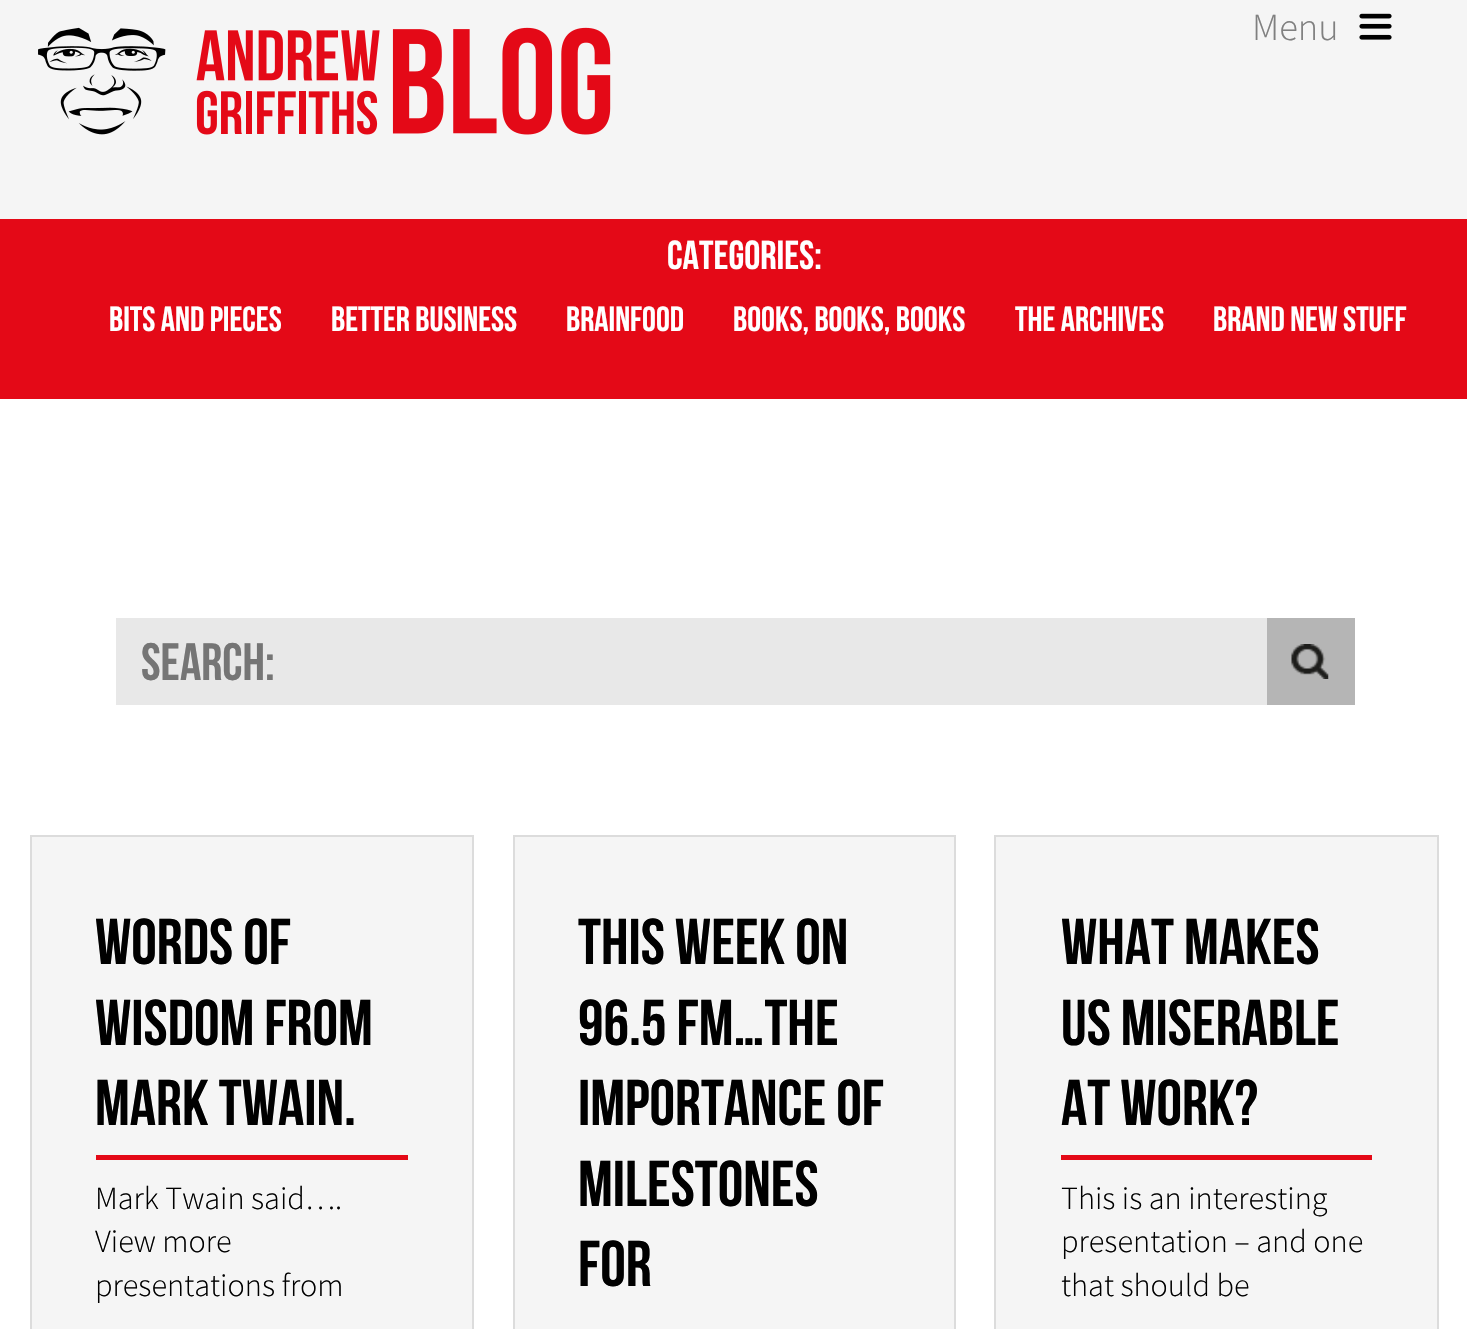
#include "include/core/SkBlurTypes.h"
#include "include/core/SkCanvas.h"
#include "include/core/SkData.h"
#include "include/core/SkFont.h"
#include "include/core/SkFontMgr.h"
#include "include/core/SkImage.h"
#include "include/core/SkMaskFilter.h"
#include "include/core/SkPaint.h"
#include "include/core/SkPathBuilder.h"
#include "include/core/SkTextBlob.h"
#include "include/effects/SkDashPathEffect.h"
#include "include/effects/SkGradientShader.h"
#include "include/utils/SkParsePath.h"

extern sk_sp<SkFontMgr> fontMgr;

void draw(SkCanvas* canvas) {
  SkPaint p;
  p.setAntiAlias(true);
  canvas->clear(SK_ColorWHITE);
  p.setColor(SkColorSetRGB(245, 245, 245));
  canvas->drawRect(SkRect::MakeLTRB(0, 0, 1467, 219), p);
  canvas->drawImageRect(SkImages::DeferredFromEncodedData(SkData::MakeFromFileName("images/1.png")), SkRect::MakeLTRB(38, 27, 611, 135), SkSamplingOptions());
  canvas->drawImageRect(SkImages::DeferredFromEncodedData(SkData::MakeFromFileName("images/2.png")), SkRect::MakeLTRB(1359, 13, 1392, 40), SkSamplingOptions());
  p.setColor(SkColorSetRGB(228, 9, 23));
  canvas->drawRect(SkRect::MakeLTRB(0, 219, 1467, 399), p);
  p.setColor(SkColorSetRGB(232, 232, 232));
  canvas->drawRect(SkRect::MakeLTRB(116, 618, 1267, 705), p);
  p.setColor(SkColorSetRGB(181, 181, 181));
  canvas->drawRect(SkRect::MakeLTRB(1267, 618, 1355, 705), p);
  canvas->drawImageRect(SkImages::DeferredFromEncodedData(SkData::MakeFromFileName("images/3.png")), SkRect::MakeLTRB(1291, 644, 1329, 679), SkSamplingOptions());
  p.setColor(SkColorSetRGB(245, 245, 245));
  canvas->drawRect(SkRect::MakeLTRB(31, 836, 473, 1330), p);
  p.setStyle(SkPaint::kStroke_Style);
  p.setStrokeWidth(2);
  p.setColor(SkColorSetRGB(220, 220, 220));
  canvas->drawRect(SkRect::MakeLTRB(31, 836, 473, 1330), p);
  p.setStyle(SkPaint::kFill_Style);
  p.setColor(SkColorSetRGB(228, 9, 23));
  canvas->drawRect(SkRect::MakeLTRB(96, 1155, 408, 1160), p);
  p.setColor(SkColorSetRGB(245, 245, 245));
  canvas->drawRect(SkRect::MakeLTRB(514, 836, 955, 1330), p);
  p.setStyle(SkPaint::kStroke_Style);
  p.setColor(SkColorSetRGB(220, 220, 220));
  canvas->drawRect(SkRect::MakeLTRB(514, 836, 955, 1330), p);
  p.setStyle(SkPaint::kFill_Style);
  p.setColor(SkColorSetRGB(245, 245, 245));
  canvas->drawRect(SkRect::MakeLTRB(995, 836, 1438, 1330), p);
  p.setStyle(SkPaint::kStroke_Style);
  p.setColor(SkColorSetRGB(220, 220, 220));
  canvas->drawRect(SkRect::MakeLTRB(995, 836, 1438, 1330), p);
  p.setStyle(SkPaint::kFill_Style);
  p.setColor(SkColorSetRGB(228, 9, 23));
  canvas->drawRect(SkRect::MakeLTRB(1061, 1155, 1372, 1160), p);
  SkFont font1(fontMgr->matchFamilyStyle("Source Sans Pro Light", SkFontStyle(300, SkFontStyle::kNormal_Width, SkFontStyle::kUpright_Slant)), 38.5f);
  font1.setSubpixel(true);
  p.setColor(SkColorSetRGB(128, 128, 128));
  canvas->drawString("Menu", 1252, 40, font1, p);
  SkFont font2(fontMgr->matchFamilyStyle("Bebas Neue", SkFontStyle::Normal()), 40.5f);
  font2.setSubpixel(true);
  p.setColor(SK_ColorWHITE);
  canvas->drawString("Categories:", 667, 269, font2, p);
  SkFont font3(fontMgr->matchFamilyStyle("Bebas Neue", SkFontStyle::Normal()), 35);
  font3.setSubpixel(true);
  canvas->drawString("Bits And Pieces", 109, 331, font3, p);
  canvas->drawString("Better Business", 331, 331, font3, p);
  canvas->drawString("Brainfood", 566, 331, font3, p);
  canvas->drawString("Books, Books, Books", 733, 331, font3, p);
  canvas->drawString("The Archives", 1015, 331, font3, p);
  canvas->drawString("Brand New Stuff", 1213, 331, font3, p);
  SkFont font4(fontMgr->matchFamilyStyle("Bebas Neue", SkFontStyle::Normal()), 52.5f);
  font4.setSubpixel(true);
  p.setColor(SkColorSetRGB(117, 117, 117));
  canvas->drawString("Search:", 141, 680, font4, p);
  SkFont font5(fontMgr->matchFamilyStyle("Bebas Neue", SkFontStyle::Normal()), 64.5f);
  font5.setSubpixel(true);
  p.setColor(SK_ColorBLACK);
  canvas->drawString("Words of", 95, 964, font5, p);
  canvas->drawString("wisdom from", 95, 1045, font5, p);
  canvas->drawString("Mark Twain.", 95, 1125, font5, p);
  SkFont font6(fontMgr->matchFamilyStyle("Source Sans Pro Light", SkFontStyle(300, SkFontStyle::kNormal_Width, SkFontStyle::kUpright_Slant)), 32.25f);
  font6.setSubpixel(true);
  canvas->drawString("Mark Twain said….", 95, 1209, font6, p);
  canvas->drawString("View more", 95, 1252, font6, p);
  canvas->drawString("presentations from", 95, 1296, font6, p);
  canvas->drawString("This week on", 578, 964, font5, p);
  canvas->drawString("96.5 FM…the", 578, 1045, font5, p);
  canvas->drawString("importance of", 578, 1125, font5, p);
  canvas->drawString("milestones", 578, 1206, font5, p);
  canvas->drawString("for", 578, 1286, font5, p);
  canvas->drawString("What makes", 1061, 964, font5, p);
  canvas->drawString("us miserable", 1061, 1045, font5, p);
  canvas->drawString("at work?", 1061, 1125, font5, p);
  canvas->drawString("This is an interesting", 1061, 1209, font6, p);
  canvas->drawString("presentation – and one", 1061, 1252, font6, p);
  canvas->drawString("that should be", 1061, 1296, font6, p);
}
